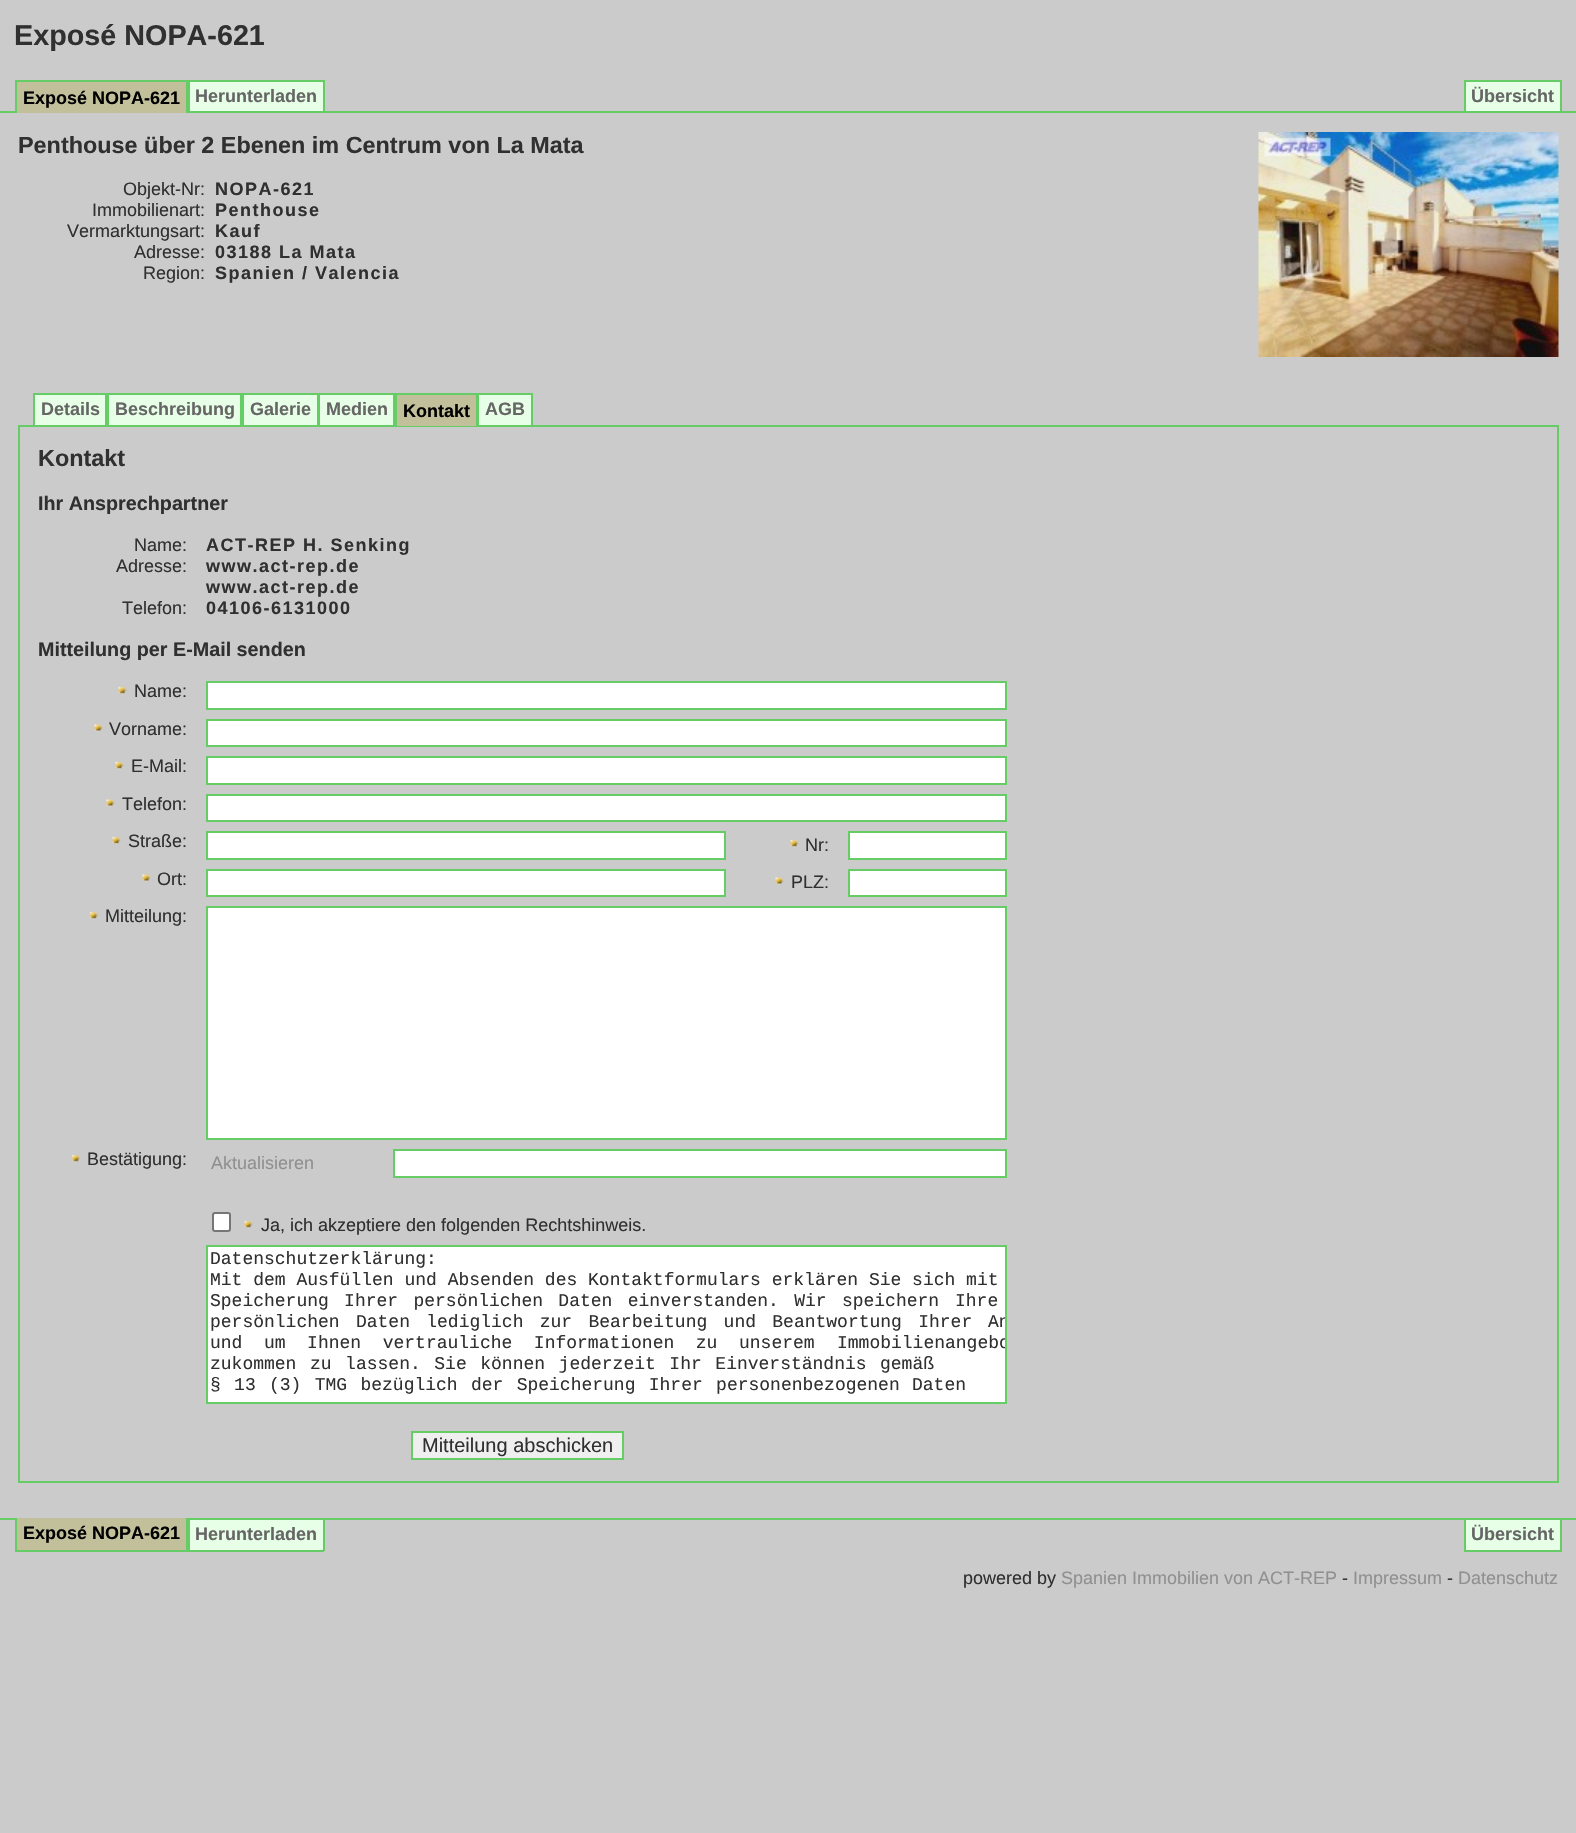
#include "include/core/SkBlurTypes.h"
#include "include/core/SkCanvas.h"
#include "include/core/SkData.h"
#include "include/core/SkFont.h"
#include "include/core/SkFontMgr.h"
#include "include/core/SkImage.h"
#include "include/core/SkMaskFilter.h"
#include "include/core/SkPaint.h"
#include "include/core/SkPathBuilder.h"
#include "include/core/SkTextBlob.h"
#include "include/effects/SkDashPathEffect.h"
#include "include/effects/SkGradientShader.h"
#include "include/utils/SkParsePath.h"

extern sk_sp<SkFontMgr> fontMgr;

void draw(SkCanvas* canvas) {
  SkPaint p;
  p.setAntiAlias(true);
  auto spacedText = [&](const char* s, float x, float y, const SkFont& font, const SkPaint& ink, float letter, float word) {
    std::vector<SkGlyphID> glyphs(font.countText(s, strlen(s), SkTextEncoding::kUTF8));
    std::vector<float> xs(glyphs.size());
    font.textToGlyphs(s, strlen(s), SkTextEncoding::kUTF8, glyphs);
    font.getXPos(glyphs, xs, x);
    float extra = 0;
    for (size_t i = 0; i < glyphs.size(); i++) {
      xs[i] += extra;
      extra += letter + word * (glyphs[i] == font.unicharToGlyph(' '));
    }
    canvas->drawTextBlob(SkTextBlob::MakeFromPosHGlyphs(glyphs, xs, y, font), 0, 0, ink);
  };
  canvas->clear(SkColorSetRGB(203, 203, 203));
  p.setColor(SkColorSetRGB(102, 204, 102));
  canvas->drawRect(SkRect::MakeLTRB(0, 111, 1576, 113), p);
  p.setColor(SkColorSetRGB(194, 192, 155));
  canvas->drawRect(SkRect::MakeLTRB(17, 82, 186, 113), p);
  p.setColor(SkColorSetRGB(102, 204, 102));
  canvas->drawRect(SkRect::MakeLTRB(15, 80, 324, 82), p);
  canvas->drawRect(SkRect::MakeLTRB(186, 80, 188, 113), p);
  canvas->drawRect(SkRect::MakeLTRB(15, 80, 17, 113), p);
  p.setColor(SkColorSetRGB(230, 255, 230));
  canvas->drawRect(SkRect::MakeLTRB(190, 82, 323, 111), p);
  p.setColor(SkColorSetRGB(102, 204, 102));
  canvas->drawRect(SkRect::MakeLTRB(323, 80, 325, 111), p);
  canvas->drawRect(SkRect::MakeLTRB(188, 80, 190, 111), p);
  p.setColor(SkColorSetRGB(230, 255, 230));
  canvas->drawRect(SkRect::MakeLTRB(1466, 82, 1560, 111), p);
  p.setColor(SkColorSetRGB(102, 204, 102));
  canvas->drawRect(SkRect::MakeLTRB(1464, 80, 1562, 82), p);
  canvas->drawRect(SkRect::MakeLTRB(1560, 80, 1562, 111), p);
  canvas->drawRect(SkRect::MakeLTRB(1464, 80, 1466, 111), p);
  canvas->drawImageRect(SkImages::DeferredFromEncodedData(SkData::MakeFromFileName("images/1.png")), SkRect::MakeLTRB(1258, 132, 1559, 357), SkSamplingOptions());
  canvas->drawRect(SkRect::MakeLTRB(1557, 425, 1559, 1482), p);
  canvas->drawRect(SkRect::MakeLTRB(18, 1481, 1559, 1483), p);
  canvas->drawRect(SkRect::MakeLTRB(18, 425, 20, 1482), p);
  canvas->drawRect(SkRect::MakeLTRB(18, 425, 1559, 427), p);
  p.setColor(SkColorSetRGB(230, 255, 230));
  canvas->drawRect(SkRect::MakeLTRB(35, 395, 105, 425), p);
  p.setColor(SkColorSetRGB(102, 204, 102));
  canvas->drawRect(SkRect::MakeLTRB(33, 393, 395, 395), p);
  canvas->drawRect(SkRect::MakeLTRB(105, 393, 109, 425), p);
  canvas->drawRect(SkRect::MakeLTRB(33, 393, 35, 425), p);
  p.setColor(SkColorSetRGB(230, 255, 230));
  canvas->drawRect(SkRect::MakeLTRB(109, 395, 240, 425), p);
  p.setColor(SkColorSetRGB(102, 204, 102));
  canvas->drawRect(SkRect::MakeLTRB(240, 393, 244, 425), p);
  p.setColor(SkColorSetRGB(230, 255, 230));
  canvas->drawRect(SkRect::MakeLTRB(244, 395, 317, 425), p);
  p.setColor(SkColorSetRGB(102, 204, 102));
  canvas->drawRect(SkRect::MakeLTRB(317, 393, 320, 425), p);
  p.setColor(SkColorSetRGB(230, 255, 230));
  canvas->drawRect(SkRect::MakeLTRB(320, 395, 393, 425), p);
  p.setColor(SkColorSetRGB(102, 204, 102));
  canvas->drawRect(SkRect::MakeLTRB(393, 393, 395, 425), p);
  p.setColor(SkColorSetRGB(194, 192, 155));
  canvas->drawRect(SkRect::MakeLTRB(397, 395, 476, 426), p);
  p.setColor(SkColorSetRGB(102, 204, 102));
  canvas->drawRect(SkRect::MakeLTRB(395, 393, 533, 395), p);
  canvas->drawRect(SkRect::MakeLTRB(476, 393, 478, 426), p);
  canvas->drawRect(SkRect::MakeLTRB(395, 393, 397, 426), p);
  p.setColor(SkColorSetRGB(230, 255, 230));
  canvas->drawRect(SkRect::MakeLTRB(479, 395, 531, 425), p);
  p.setColor(SkColorSetRGB(102, 204, 102));
  canvas->drawRect(SkRect::MakeLTRB(531, 393, 533, 425), p);
  canvas->drawRect(SkRect::MakeLTRB(478, 393, 479, 425), p);
  canvas->drawImageRect(SkImages::DeferredFromEncodedData(SkData::MakeFromFileName("images/2.png")), SkRect::MakeLTRB(118, 686, 127, 695), SkSamplingOptions());
  p.setColor(SK_ColorWHITE);
  canvas->drawRect(SkRect::MakeLTRB(207, 682, 1006, 709), p);
  p.setStyle(SkPaint::kStroke_Style);
  p.setStrokeWidth(2);
  p.setColor(SkColorSetRGB(102, 204, 102));
  canvas->drawRect(SkRect::MakeLTRB(207, 682, 1006, 709), p);
  canvas->drawImageRect(SkImages::DeferredFromEncodedData(SkData::MakeFromFileName("images/3.png")), SkRect::MakeLTRB(94, 724, 103, 732), SkSamplingOptions());
  p.setStyle(SkPaint::kFill_Style);
  p.setColor(SK_ColorWHITE);
  canvas->drawRect(SkRect::MakeLTRB(207, 720, 1006, 746), p);
  p.setStyle(SkPaint::kStroke_Style);
  p.setColor(SkColorSetRGB(102, 204, 102));
  canvas->drawRect(SkRect::MakeLTRB(207, 720, 1006, 746), p);
  canvas->drawImageRect(SkImages::DeferredFromEncodedData(SkData::MakeFromFileName("images/2.png")), SkRect::MakeLTRB(115, 761, 124, 770), SkSamplingOptions());
  p.setStyle(SkPaint::kFill_Style);
  p.setColor(SK_ColorWHITE);
  canvas->drawRect(SkRect::MakeLTRB(207, 757, 1006, 784), p);
  p.setStyle(SkPaint::kStroke_Style);
  p.setColor(SkColorSetRGB(102, 204, 102));
  canvas->drawRect(SkRect::MakeLTRB(207, 757, 1006, 784), p);
  canvas->drawImageRect(SkImages::DeferredFromEncodedData(SkData::MakeFromFileName("images/3.png")), SkRect::MakeLTRB(106, 799, 115, 807), SkSamplingOptions());
  p.setStyle(SkPaint::kFill_Style);
  p.setColor(SK_ColorWHITE);
  canvas->drawRect(SkRect::MakeLTRB(207, 795, 1006, 821), p);
  p.setStyle(SkPaint::kStroke_Style);
  p.setColor(SkColorSetRGB(102, 204, 102));
  canvas->drawRect(SkRect::MakeLTRB(207, 795, 1006, 821), p);
  canvas->drawImageRect(SkImages::DeferredFromEncodedData(SkData::MakeFromFileName("images/2.png")), SkRect::MakeLTRB(112, 836, 121, 845), SkSamplingOptions());
  p.setStyle(SkPaint::kFill_Style);
  p.setColor(SK_ColorWHITE);
  canvas->drawRect(SkRect::MakeLTRB(207, 832, 725, 859), p);
  p.setStyle(SkPaint::kStroke_Style);
  p.setColor(SkColorSetRGB(102, 204, 102));
  canvas->drawRect(SkRect::MakeLTRB(207, 832, 725, 859), p);
  canvas->drawImageRect(SkImages::DeferredFromEncodedData(SkData::MakeFromFileName("images/2.png")), SkRect::MakeLTRB(790, 839, 799, 848), SkSamplingOptions());
  p.setStyle(SkPaint::kFill_Style);
  p.setColor(SK_ColorWHITE);
  canvas->drawRect(SkRect::MakeLTRB(849, 832, 1006, 859), p);
  p.setStyle(SkPaint::kStroke_Style);
  p.setColor(SkColorSetRGB(102, 204, 102));
  canvas->drawRect(SkRect::MakeLTRB(849, 832, 1006, 859), p);
  canvas->drawImageRect(SkImages::DeferredFromEncodedData(SkData::MakeFromFileName("images/3.png")), SkRect::MakeLTRB(142, 874, 151, 882), SkSamplingOptions());
  p.setStyle(SkPaint::kFill_Style);
  p.setColor(SK_ColorWHITE);
  canvas->drawRect(SkRect::MakeLTRB(207, 870, 725, 896), p);
  p.setStyle(SkPaint::kStroke_Style);
  p.setColor(SkColorSetRGB(102, 204, 102));
  canvas->drawRect(SkRect::MakeLTRB(207, 870, 725, 896), p);
  canvas->drawImageRect(SkImages::DeferredFromEncodedData(SkData::MakeFromFileName("images/3.png")), SkRect::MakeLTRB(775, 877, 784, 885), SkSamplingOptions());
  p.setStyle(SkPaint::kFill_Style);
  p.setColor(SK_ColorWHITE);
  canvas->drawRect(SkRect::MakeLTRB(849, 870, 1006, 896), p);
  p.setStyle(SkPaint::kStroke_Style);
  p.setColor(SkColorSetRGB(102, 204, 102));
  canvas->drawRect(SkRect::MakeLTRB(849, 870, 1006, 896), p);
  canvas->drawImageRect(SkImages::DeferredFromEncodedData(SkData::MakeFromFileName("images/4.png")), SkRect::MakeLTRB(89, 911, 98, 920), SkSamplingOptions());
  p.setStyle(SkPaint::kFill_Style);
  p.setColor(SK_ColorWHITE);
  canvas->drawRect(SkRect::MakeLTRB(207, 907, 1006, 1139), p);
  p.setStyle(SkPaint::kStroke_Style);
  p.setColor(SkColorSetRGB(102, 204, 102));
  canvas->drawRect(SkRect::MakeLTRB(207, 907, 1006, 1139), p);
  canvas->drawImageRect(SkImages::DeferredFromEncodedData(SkData::MakeFromFileName("images/4.png")), SkRect::MakeLTRB(71, 1154, 80, 1163), SkSamplingOptions());
  p.setStyle(SkPaint::kFill_Style);
  p.setColor(SK_ColorWHITE);
  canvas->drawRect(SkRect::MakeLTRB(394, 1150, 1006, 1177), p);
  p.setStyle(SkPaint::kStroke_Style);
  p.setColor(SkColorSetRGB(102, 204, 102));
  canvas->drawRect(SkRect::MakeLTRB(394, 1150, 1006, 1177), p);
  p.setStyle(SkPaint::kFill_Style);
  p.setColor(SK_ColorWHITE);
  canvas->drawRoundRect(SkRect::MakeLTRB(213, 1213, 230, 1231), 2, 2, p);
  p.setStyle(SkPaint::kStroke_Style);
  p.setColor(SkColorSetRGB(118, 118, 118));
  canvas->drawRoundRect(SkRect::MakeLTRB(213, 1213, 230, 1231), 2, 2, p);
  canvas->drawImageRect(SkImages::DeferredFromEncodedData(SkData::MakeFromFileName("images/2.png")), SkRect::MakeLTRB(244, 1220, 253, 1229), SkSamplingOptions());
  p.setStyle(SkPaint::kFill_Style);
  p.setColor(SK_ColorWHITE);
  canvas->drawRect(SkRect::MakeLTRB(207, 1246, 1006, 1403), p);
  p.setStyle(SkPaint::kStroke_Style);
  p.setColor(SkColorSetRGB(102, 204, 102));
  canvas->drawRect(SkRect::MakeLTRB(207, 1246, 1006, 1403), p);
  p.setStyle(SkPaint::kFill_Style);
  p.setColor(SkColorSetRGB(239, 239, 239));
  canvas->drawRect(SkRect::MakeLTRB(412, 1432, 623, 1459), p);
  p.setStyle(SkPaint::kStroke_Style);
  p.setColor(SkColorSetRGB(102, 204, 102));
  canvas->drawRect(SkRect::MakeLTRB(412, 1432, 623, 1459), p);
  p.setStyle(SkPaint::kFill_Style);
  canvas->drawRect(SkRect::MakeLTRB(0, 1518, 1576, 1520), p);
  p.setColor(SkColorSetRGB(194, 192, 155));
  canvas->drawRect(SkRect::MakeLTRB(17, 1518, 186, 1550), p);
  p.setColor(SkColorSetRGB(102, 204, 102));
  canvas->drawRect(SkRect::MakeLTRB(186, 1518, 188, 1551), p);
  canvas->drawRect(SkRect::MakeLTRB(15, 1550, 188, 1552), p);
  canvas->drawRect(SkRect::MakeLTRB(15, 1518, 17, 1551), p);
  p.setColor(SkColorSetRGB(230, 255, 230));
  canvas->drawRect(SkRect::MakeLTRB(190, 1520, 323, 1550), p);
  p.setColor(SkColorSetRGB(102, 204, 102));
  canvas->drawRect(SkRect::MakeLTRB(323, 1520, 325, 1551), p);
  canvas->drawRect(SkRect::MakeLTRB(188, 1550, 324, 1552), p);
  canvas->drawRect(SkRect::MakeLTRB(188, 1520, 190, 1551), p);
  p.setColor(SkColorSetRGB(230, 255, 230));
  canvas->drawRect(SkRect::MakeLTRB(1466, 1520, 1560, 1550), p);
  p.setColor(SkColorSetRGB(102, 204, 102));
  canvas->drawRect(SkRect::MakeLTRB(1560, 1520, 1562, 1551), p);
  canvas->drawRect(SkRect::MakeLTRB(1464, 1550, 1562, 1552), p);
  canvas->drawRect(SkRect::MakeLTRB(1464, 1520, 1466, 1551), p);
  SkFont font1(fontMgr->matchFamilyStyle("Liberation Sans", SkFontStyle::Bold()), 28.75f);
  font1.setSubpixel(true);
  p.setColor(SkColorSetRGB(48, 48, 48));
  canvas->drawString("Exposé NOPA-621", 14, 45, font1, p);
  SkFont font2(fontMgr->matchFamilyStyle("Liberation Sans", SkFontStyle::Bold()), 18);
  font2.setSubpixel(true);
  p.setColor(SK_ColorBLACK);
  canvas->drawString("Exposé NOPA-621", 23, 104, font2, p);
  p.setColor(SkColorSetRGB(102, 102, 102));
  canvas->drawString("Herunterladen", 195, 102, font2, p);
  canvas->drawString("Übersicht", 1471, 102, font2, p);
  SkFont font3(fontMgr->matchFamilyStyle("Liberation Sans", SkFontStyle::Bold()), 23.4f);
  font3.setSubpixel(true);
  p.setColor(SkColorSetRGB(48, 48, 48));
  canvas->drawString("Penthouse über 2 Ebenen im Centrum von La Mata", 18, 153, font3, p);
  SkFont font4(fontMgr->matchFamilyStyle("Liberation Sans", SkFontStyle::Normal()), 18);
  font4.setSubpixel(true);
  canvas->drawString("Objekt-Nr:", 123, 195, font4, p);
  spacedText("NOPA-621", 215, 195, font2, p, 1.5f, 0);
  canvas->drawString("Immobilienart:", 92, 216, font4, p);
  spacedText("Penthouse", 215, 216, font2, p, 1.5f, 0);
  canvas->drawString("Vermarktungsart:", 67, 237, font4, p);
  spacedText("Kauf", 215, 237, font2, p, 1.5f, 0);
  canvas->drawString("Adresse:", 134, 258, font4, p);
  spacedText("03188 La Mata", 215, 258, font2, p, 1.5f, 0);
  canvas->drawString("Region:", 143, 279, font4, p);
  spacedText("Spanien / Valencia", 215, 279, font2, p, 1.5f, 0);
  p.setColor(SkColorSetRGB(102, 102, 102));
  canvas->drawString("Details", 41, 415, font2, p);
  canvas->drawString("Beschreibung", 115, 415, font2, p);
  canvas->drawString("Galerie", 250, 415, font2, p);
  canvas->drawString("Medien", 326, 415, font2, p);
  p.setColor(SK_ColorBLACK);
  canvas->drawString("Kontakt", 403, 417, font2, p);
  p.setColor(SkColorSetRGB(102, 102, 102));
  canvas->drawString("AGB", 485, 415, font2, p);
  p.setColor(SkColorSetRGB(48, 48, 48));
  canvas->drawString("Kontakt", 38, 466, font3, p);
  SkFont font5(fontMgr->matchFamilyStyle("Liberation Sans", SkFontStyle::Bold()), 19.75f);
  font5.setSubpixel(true);
  canvas->drawString("Ihr Ansprechpartner", 38, 510, font5, p);
  canvas->drawString("Name:", 134, 551, font4, p);
  spacedText("ACT-REP H. Senking", 206, 551, font2, p, 1.5f, 0);
  canvas->drawString("Adresse:", 116, 572, font4, p);
  spacedText("www.act-rep.de", 206, 572, font2, p, 1.5f, 0);
  spacedText("www.act-rep.de", 206, 593, font2, p, 1.5f, 0);
  canvas->drawString("Telefon:", 122, 614, font4, p);
  spacedText("04106-6131000", 206, 614, font2, p, 1.5f, 0);
  canvas->drawString("Mitteilung per E-Mail senden", 38, 656, font5, p);
  canvas->drawString("Name:", 134, 697, font4, p);
  canvas->drawString("Vorname:", 109, 735, font4, p);
  canvas->drawString("E-Mail:", 131, 772, font4, p);
  canvas->drawString("Telefon:", 122, 810, font4, p);
  canvas->drawString("Straße:", 128, 847, font4, p);
  canvas->drawString("Nr:", 805, 851, font4, p);
  canvas->drawString("Ort:", 157, 885, font4, p);
  canvas->drawString("PLZ:", 791, 888, font4, p);
  canvas->drawString("Mitteilung:", 105, 922, font4, p);
  canvas->drawString("Bestätigung:", 87, 1165, font4, p);
  p.setColor(SkColorSetRGB(144, 144, 144));
  canvas->drawString("Aktualisieren", 211, 1169, font4, p);
  p.setColor(SkColorSetRGB(48, 48, 48));
  canvas->drawString("Ja, ich akzeptiere den folgenden Rechtshinweis.", 261, 1231, font4, p);
  SkFont font6(fontMgr->matchFamilyStyle("Liberation Mono", SkFontStyle::Normal()), 18);
  font6.setSubpixel(true);
  canvas->drawString("Datenschutzerklärung:", 210, 1264, font6, p);
  canvas->drawString("Mit dem Ausfüllen und Absenden des Kontaktformulars erklären Sie sich mit", 210, 1285, font6, p);
  spacedText("Speicherung Ihrer persönlichen Daten einverstanden. Wir speichern", 210, 1306, font6, p, 0, 4.5f);
  canvas->drawString("Ihre", 955, 1306, font6, p);
  spacedText("persönlichen Daten lediglich zur Bearbeitung und Beantwortung Ihrer", 210, 1327, font6, p, 0, 5.5f);
  canvas->save();
  canvas->clipRect(SkRect::MakeLTRB(207, 1247, 1005, 1403));
  canvas->drawString("An", 988, 1327, font6, p);
  canvas->restore();
  spacedText("und um Ihnen vertrauliche Informationen zu unserem", 210, 1348, font6, p, 0, 10.75f);
  canvas->save();
  canvas->clipRect(SkRect::MakeLTRB(207, 1247, 1005, 1403));
  canvas->drawString("Immobilienangebo", 837, 1348, font6, p);
  canvas->restore();
  spacedText("zukommen zu lassen. Sie können jederzeit Ihr Einverständnis", 210, 1369, font6, p, 0, 2.75f);
  canvas->drawString("gemäß", 880, 1369, font6, p);
  spacedText("§ 13 (3) TMG bezüglich der Speicherung Ihrer personenbezogenen", 210, 1390, font6, p, 0, 2.5f);
  canvas->drawString("Daten", 912, 1390, font6, p);
  SkFont font7(fontMgr->matchFamilyStyle("Liberation Sans", SkFontStyle::Normal()), 20);
  font7.setSubpixel(true);
  canvas->drawString("Mitteilung abschicken", 422, 1452, font7, p);
  p.setColor(SK_ColorBLACK);
  canvas->drawString("Exposé NOPA-621", 23, 1539, font2, p);
  p.setColor(SkColorSetRGB(102, 102, 102));
  canvas->drawString("Herunterladen", 195, 1540, font2, p);
  canvas->drawString("Übersicht", 1471, 1540, font2, p);
  p.setColor(SkColorSetRGB(48, 48, 48));
  canvas->drawString("powered by", 963, 1584, font4, p);
  p.setColor(SkColorSetRGB(144, 144, 144));
  canvas->drawString("Spanien Immobilien von ACT-REP", 1061, 1584, font4, p);
  p.setColor(SkColorSetRGB(48, 48, 48));
  canvas->drawString("-", 1342, 1584, font4, p);
  p.setColor(SkColorSetRGB(144, 144, 144));
  canvas->drawString("Impressum", 1353, 1584, font4, p);
  p.setColor(SkColorSetRGB(48, 48, 48));
  canvas->drawString("-", 1447, 1584, font4, p);
  p.setColor(SkColorSetRGB(144, 144, 144));
  canvas->drawString("Datenschutz", 1458, 1584, font4, p);
}
